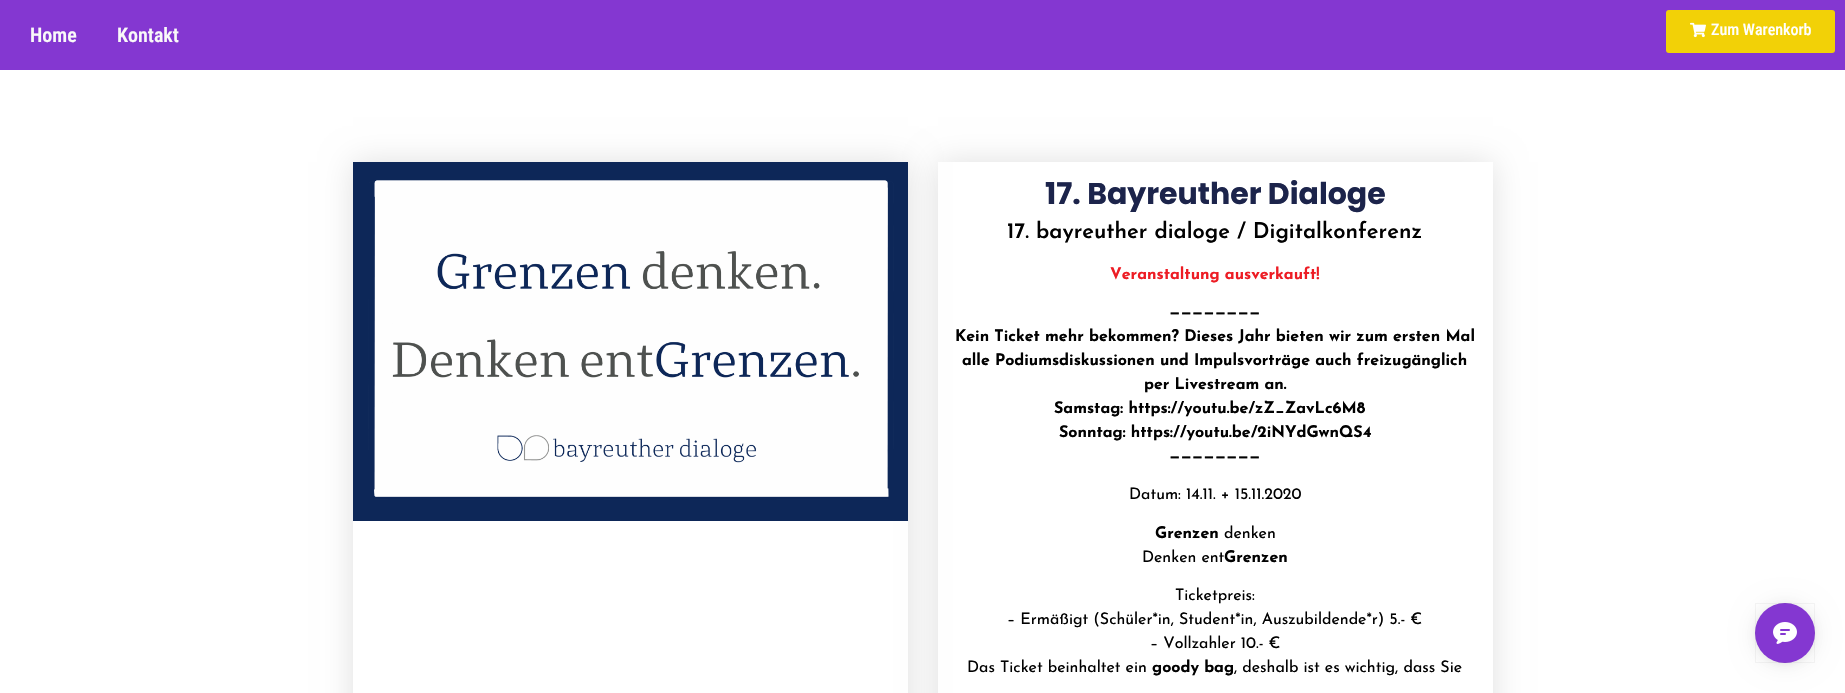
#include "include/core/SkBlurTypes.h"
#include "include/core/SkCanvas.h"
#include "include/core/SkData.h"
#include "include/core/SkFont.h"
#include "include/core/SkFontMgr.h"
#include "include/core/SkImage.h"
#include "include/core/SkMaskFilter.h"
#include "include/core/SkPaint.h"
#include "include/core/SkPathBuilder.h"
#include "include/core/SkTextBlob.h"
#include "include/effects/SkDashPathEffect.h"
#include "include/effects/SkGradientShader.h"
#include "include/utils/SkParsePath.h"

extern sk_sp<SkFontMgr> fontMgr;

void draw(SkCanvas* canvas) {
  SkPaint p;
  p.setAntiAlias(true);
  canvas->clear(SK_ColorWHITE);
  p.setColor(SkColorSetRGB(132, 55, 209));
  canvas->drawRect(SkRect::MakeLTRB(0, 0, 1845, 70), p);
  p.setColor(SkColorSetRGB(242, 209, 7));
  canvas->drawRoundRect(SkRect::MakeLTRB(1666, 10, 1835, 53), 3, 3, p);
  canvas->drawImageRect(SkImages::DeferredFromEncodedData(SkData::MakeFromFileName("images/1.png")), SkRect::MakeLTRB(1690, 22, 1706, 38), SkSamplingOptions());
  canvas->save();
  canvas->clipPath(SkPathBuilder(SkPathFillType::kEvenOdd).moveTo(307, 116).lineTo(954, 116).lineTo(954, 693).lineTo(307, 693).close().moveTo(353, 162).lineTo(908, 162).lineTo(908, 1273).lineTo(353, 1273).close().detach(), true);
  p.setColor(SkColorSetARGB(31, 0, 0, 0));
  p.setMaskFilter(SkMaskFilter::MakeBlur(kNormal_SkBlurStyle, 15));
  canvas->drawRect(SkRect::MakeLTRB(353, 162, 908, 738), p);
  p.setMaskFilter(nullptr);
  canvas->restore();
  canvas->drawImageRect(SkImages::DeferredFromEncodedData(SkData::MakeFromFileName("images/2.png")), SkRect::MakeLTRB(353, 162, 908, 521), SkSamplingOptions());
  canvas->save();
  canvas->clipPath(SkPathBuilder(SkPathFillType::kEvenOdd).moveTo(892, 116).lineTo(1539, 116).lineTo(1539, 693).lineTo(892, 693).close().moveTo(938, 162).lineTo(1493, 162).lineTo(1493, 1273).lineTo(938, 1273).close().detach(), true);
  p.setMaskFilter(SkMaskFilter::MakeBlur(kNormal_SkBlurStyle, 15));
  canvas->drawRect(SkRect::MakeLTRB(938, 162, 1493, 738), p);
  p.setMaskFilter(nullptr);
  canvas->restore();
  p.setColor(SkColorSetARGB(20, 0, 0, 0));
  p.setMaskFilter(SkMaskFilter::MakeBlur(kNormal_SkBlurStyle, 12));
  canvas->drawRoundRect(SkRect::MakeLTRB(1755, 605, 1815, 665), 30, 30, p);
  p.setMaskFilter(nullptr);
  p.setColor(SkColorSetARGB(15, 0, 0, 0));
  p.setMaskFilter(SkMaskFilter::MakeBlur(kNormal_SkBlurStyle, 3));
  canvas->drawRoundRect(SkRect::MakeLTRB(1755, 604, 1815, 664), 30, 30, p);
  p.setMaskFilter(nullptr);
  p.setColor(SkColorSetRGB(132, 55, 209));
  canvas->drawCircle(1785, 633, 30, p);
  p.setStyle(SkPaint::kStroke_Style);
  p.setStrokeWidth(1);
  p.setColor(SkColorSetARGB(10, 0, 0, 0));
  canvas->drawRect(SkRect::MakeLTRB(1755.5f, 603.5f, 1814.5f, 662.5f), p);
  canvas->drawImageRect(SkImages::DeferredFromEncodedData(SkData::MakeFromFileName("images/3.png")), SkRect::MakeLTRB(1773, 622, 1797, 644), SkSamplingOptions());
  SkFont font1(fontMgr->matchFamilyStyle("Roboto Condensed", SkFontStyle(600, SkFontStyle::kNormal_Width, SkFontStyle::kUpright_Slant)), 20);
  font1.setSubpixel(true);
  p.setStyle(SkPaint::kFill_Style);
  p.setColor(SkColorSetRGB(249, 249, 249));
  canvas->drawString("Home", 30, 42, font1, p);
  canvas->drawString("Kontakt", 117, 42, font1, p);
  SkFont font2(fontMgr->matchFamilyStyle("Roboto Condensed", SkFontStyle(500, SkFontStyle::kNormal_Width, SkFontStyle::kUpright_Slant)), 16);
  font2.setSubpixel(true);
  p.setColor(SK_ColorWHITE);
  canvas->drawString("Zum Warenkorb", 1711, 35, font2, p);
  SkFont font3(fontMgr->matchFamilyStyle("Poppins", SkFontStyle::Bold()), 30);
  font3.setSubpixel(true);
  p.setColor(SkColorSetRGB(28, 36, 75));
  canvas->drawString("17. Bayreuther Dialoge", 1045, 204, font3, p);
  SkFont font4(fontMgr->matchFamilyStyle("Josefin Sans", SkFontStyle(600, SkFontStyle::kNormal_Width, SkFontStyle::kUpright_Slant)), 22);
  font4.setSubpixel(true);
  p.setColor(SkColorSetRGB(1, 1, 1));
  canvas->drawString("17. bayreuther dialoge / Digitalkonferenz", 1007, 238, font4, p);
  SkFont font5(fontMgr->matchFamilyStyle("Josefin Sans", SkFontStyle::Bold()), 16);
  font5.setSubpixel(true);
  p.setColor(SkColorSetRGB(237, 28, 36));
  canvas->drawString("Veranstaltung ausverkauft!", 1110, 279, font5, p);
  p.setColor(SkColorSetRGB(1, 1, 1));
  canvas->drawString("————————", 1169, 317, font5, p);
  canvas->drawString("Kein Ticket mehr bekommen? Dieses Jahr bieten wir zum ersten Mal", 955, 341, font5, p);
  canvas->drawString("alle Podiumsdiskussionen und Impulsvorträge auch freizugänglich", 962, 365, font5, p);
  canvas->drawString("per Livestream an.", 1144, 389, font5, p);
  canvas->drawString("Samstag: https://youtu.be/zZ_ZavLc6M8", 1054, 413, font5, p);
  canvas->drawString("Sonntag: https://youtu.be/2iNYdGwnQS4", 1059, 437, font5, p);
  canvas->drawString("————————", 1169, 461, font5, p);
  SkFont font6(fontMgr->matchFamilyStyle("Josefin Sans", SkFontStyle::Normal()), 16);
  font6.setSubpixel(true);
  canvas->drawString("Datum: 14.11. + 15.11.2020", 1129, 499, font6, p);
  canvas->drawString("Grenzen", 1155, 538, font5, p);
  canvas->drawString("denken", 1224, 538, font6, p);
  canvas->drawString("Denken ent", 1142, 562, font6, p);
  canvas->drawString("Grenzen", 1224, 562, font5, p);
  canvas->drawString("Ticketpreis:", 1175, 600, font6, p);
  canvas->drawString("– Ermäßigt (Schüler*in, Student*in, Auszubildende*r) 5.- €", 1007, 624, font6, p);
  canvas->drawString("– Vollzahler 10.- €", 1150, 648, font6, p);
  canvas->drawString("Das Ticket beinhaltet ein", 967, 672, font6, p);
  canvas->drawString("goody bag", 1152, 672, font5, p);
  canvas->drawString(", deshalb ist es wichtig, dass Sie", 1234, 672, font6, p);
}
